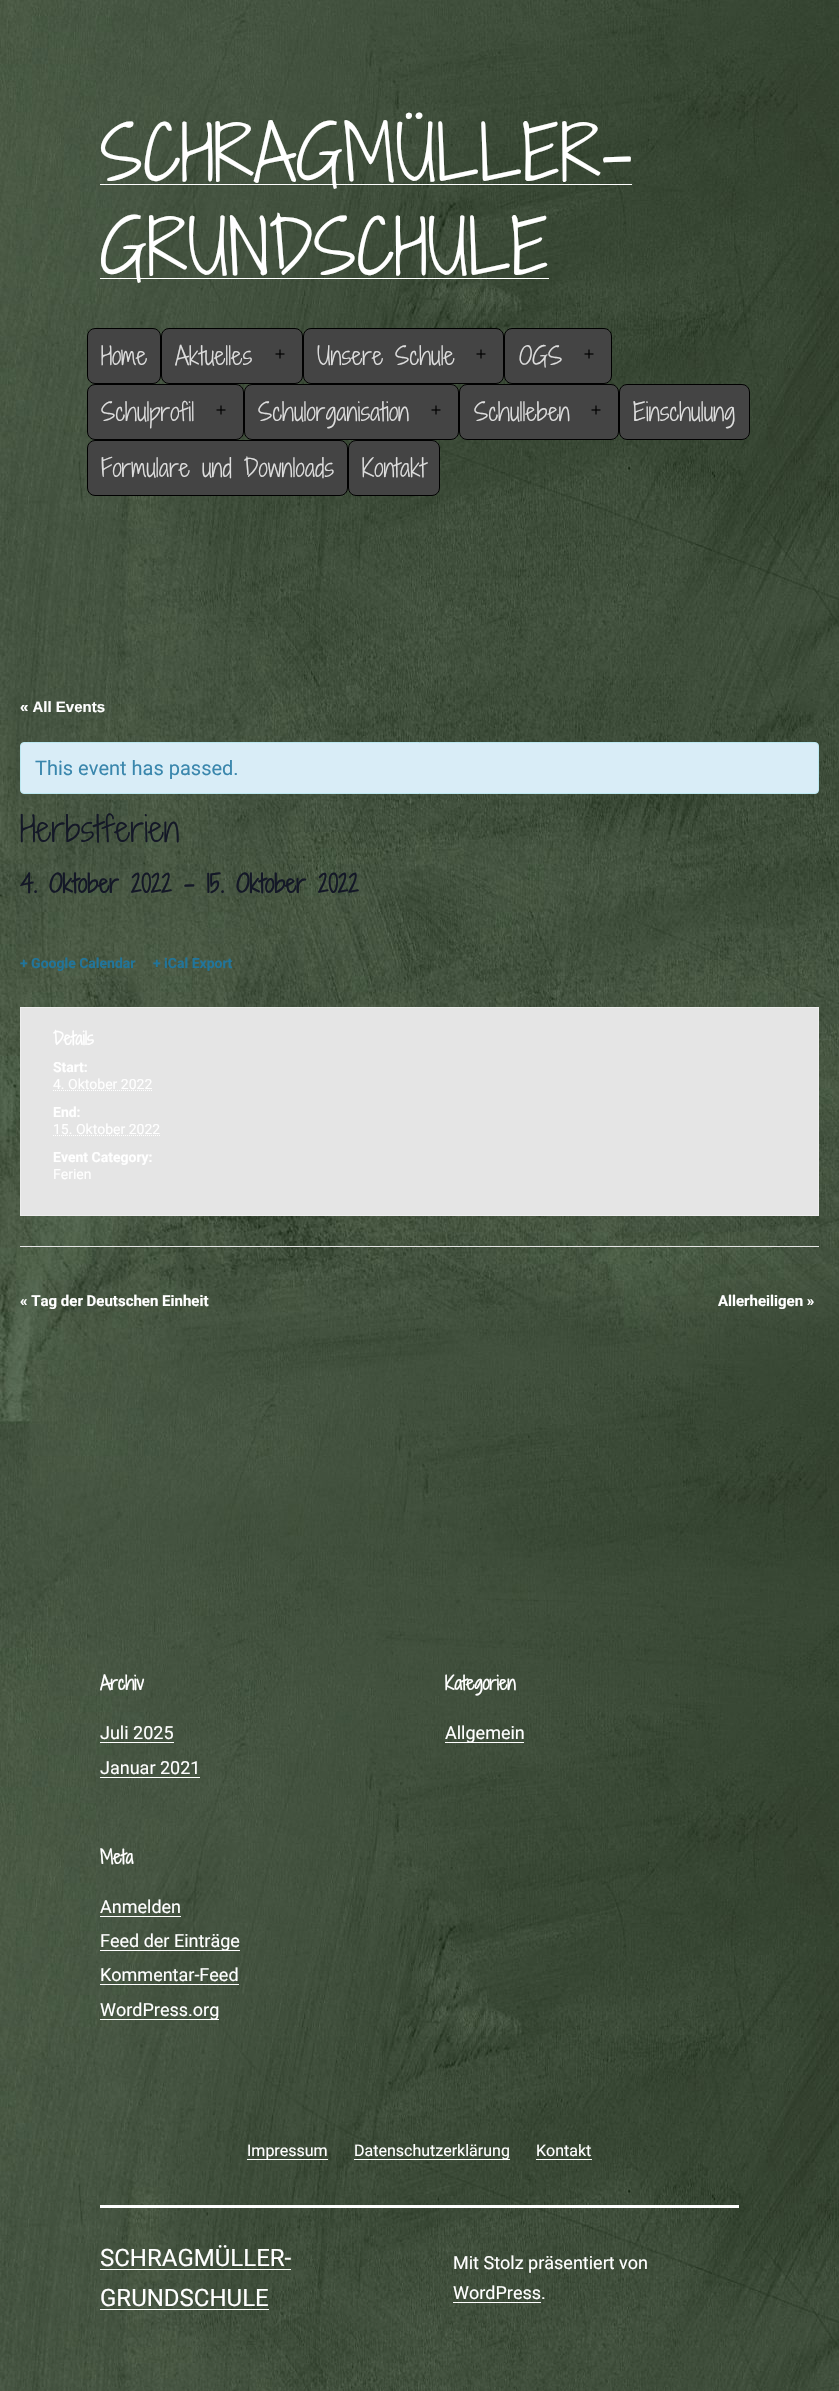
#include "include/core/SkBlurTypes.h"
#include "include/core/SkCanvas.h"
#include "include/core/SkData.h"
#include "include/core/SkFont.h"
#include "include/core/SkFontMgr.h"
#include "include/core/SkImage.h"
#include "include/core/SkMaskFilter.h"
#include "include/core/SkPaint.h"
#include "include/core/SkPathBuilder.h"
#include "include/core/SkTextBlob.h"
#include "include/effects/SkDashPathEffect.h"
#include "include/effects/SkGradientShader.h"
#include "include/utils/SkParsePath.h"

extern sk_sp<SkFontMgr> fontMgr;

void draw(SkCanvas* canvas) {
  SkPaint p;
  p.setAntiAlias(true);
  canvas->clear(SK_ColorWHITE);
  canvas->drawImageRect(SkImages::DeferredFromEncodedData(SkData::MakeFromFileName("images/1.png")), SkRect::MakeLTRB(0, 0, 839, 2391), SkSamplingOptions());
  p.setColor(SK_ColorWHITE);
  canvas->drawRect(SkRect::MakeLTRB(100, 184, 632, 185), p);
  canvas->drawRect(SkRect::MakeLTRB(100, 278, 549, 279), p);
  p.setColor(SkColorSetRGB(68, 68, 68));
  canvas->drawRoundRect(SkRect::MakeLTRB(87.5f, 328.5f, 160.5f, 383.5f), 7.5f, 7.5f, p);
  p.setStyle(SkPaint::kStroke_Style);
  p.setStrokeWidth(1);
  p.setColor(SK_ColorBLACK);
  canvas->drawRoundRect(SkRect::MakeLTRB(87.5f, 328.5f, 160.5f, 383.5f), 7.5f, 7.5f, p);
  p.setStyle(SkPaint::kFill_Style);
  p.setColor(SkColorSetRGB(68, 68, 68));
  canvas->drawRoundRect(SkRect::MakeLTRB(161.5f, 328.5f, 302.5f, 383.5f), 7.5f, 7.5f, p);
  p.setStyle(SkPaint::kStroke_Style);
  p.setColor(SK_ColorBLACK);
  canvas->drawRoundRect(SkRect::MakeLTRB(161.5f, 328.5f, 302.5f, 383.5f), 7.5f, 7.5f, p);
  canvas->drawImageRect(SkImages::DeferredFromEncodedData(SkData::MakeFromFileName("images/2.png")), SkRect::MakeLTRB(275, 349, 285, 359), SkSamplingOptions());
  p.setStyle(SkPaint::kFill_Style);
  p.setColor(SkColorSetRGB(68, 68, 68));
  canvas->drawRoundRect(SkRect::MakeLTRB(303.5f, 328.5f, 503.5f, 383.5f), 7.5f, 7.5f, p);
  p.setStyle(SkPaint::kStroke_Style);
  p.setColor(SK_ColorBLACK);
  canvas->drawRoundRect(SkRect::MakeLTRB(303.5f, 328.5f, 503.5f, 383.5f), 7.5f, 7.5f, p);
  canvas->drawImageRect(SkImages::DeferredFromEncodedData(SkData::MakeFromFileName("images/2.png")), SkRect::MakeLTRB(476, 349, 486, 359), SkSamplingOptions());
  p.setStyle(SkPaint::kFill_Style);
  p.setColor(SkColorSetRGB(68, 68, 68));
  canvas->drawRoundRect(SkRect::MakeLTRB(504.5f, 328.5f, 611.5f, 383.5f), 7.5f, 7.5f, p);
  p.setStyle(SkPaint::kStroke_Style);
  p.setColor(SK_ColorBLACK);
  canvas->drawRoundRect(SkRect::MakeLTRB(504.5f, 328.5f, 611.5f, 383.5f), 7.5f, 7.5f, p);
  canvas->drawImageRect(SkImages::DeferredFromEncodedData(SkData::MakeFromFileName("images/2.png")), SkRect::MakeLTRB(584, 349, 594, 359), SkSamplingOptions());
  p.setStyle(SkPaint::kFill_Style);
  p.setColor(SkColorSetRGB(68, 68, 68));
  canvas->drawRoundRect(SkRect::MakeLTRB(87.5f, 384.5f, 243.5f, 439.5f), 7.5f, 7.5f, p);
  p.setStyle(SkPaint::kStroke_Style);
  p.setColor(SK_ColorBLACK);
  canvas->drawRoundRect(SkRect::MakeLTRB(87.5f, 384.5f, 243.5f, 439.5f), 7.5f, 7.5f, p);
  canvas->drawImageRect(SkImages::DeferredFromEncodedData(SkData::MakeFromFileName("images/2.png")), SkRect::MakeLTRB(216, 405, 226, 415), SkSamplingOptions());
  p.setStyle(SkPaint::kFill_Style);
  p.setColor(SkColorSetRGB(68, 68, 68));
  canvas->drawRoundRect(SkRect::MakeLTRB(244.5f, 384.5f, 458.5f, 439.5f), 7.5f, 7.5f, p);
  p.setStyle(SkPaint::kStroke_Style);
  p.setColor(SK_ColorBLACK);
  canvas->drawRoundRect(SkRect::MakeLTRB(244.5f, 384.5f, 458.5f, 439.5f), 7.5f, 7.5f, p);
  canvas->drawImageRect(SkImages::DeferredFromEncodedData(SkData::MakeFromFileName("images/2.png")), SkRect::MakeLTRB(431, 405, 441, 415), SkSamplingOptions());
  p.setStyle(SkPaint::kFill_Style);
  p.setColor(SkColorSetRGB(68, 68, 68));
  canvas->drawRoundRect(SkRect::MakeLTRB(459.5f, 384.5f, 618.5f, 439.5f), 7.5f, 7.5f, p);
  p.setStyle(SkPaint::kStroke_Style);
  p.setColor(SK_ColorBLACK);
  canvas->drawRoundRect(SkRect::MakeLTRB(459.5f, 384.5f, 618.5f, 439.5f), 7.5f, 7.5f, p);
  canvas->drawImageRect(SkImages::DeferredFromEncodedData(SkData::MakeFromFileName("images/2.png")), SkRect::MakeLTRB(591, 405, 601, 415), SkSamplingOptions());
  p.setStyle(SkPaint::kFill_Style);
  p.setColor(SkColorSetRGB(68, 68, 68));
  canvas->drawRoundRect(SkRect::MakeLTRB(619.5f, 384.5f, 749.5f, 439.5f), 7.5f, 7.5f, p);
  p.setStyle(SkPaint::kStroke_Style);
  p.setColor(SK_ColorBLACK);
  canvas->drawRoundRect(SkRect::MakeLTRB(619.5f, 384.5f, 749.5f, 439.5f), 7.5f, 7.5f, p);
  p.setStyle(SkPaint::kFill_Style);
  p.setColor(SkColorSetRGB(68, 68, 68));
  canvas->drawRoundRect(SkRect::MakeLTRB(87.5f, 440.5f, 347.5f, 495.5f), 7.5f, 7.5f, p);
  p.setStyle(SkPaint::kStroke_Style);
  p.setColor(SK_ColorBLACK);
  canvas->drawRoundRect(SkRect::MakeLTRB(87.5f, 440.5f, 347.5f, 495.5f), 7.5f, 7.5f, p);
  p.setStyle(SkPaint::kFill_Style);
  p.setColor(SkColorSetRGB(68, 68, 68));
  canvas->drawRoundRect(SkRect::MakeLTRB(348.5f, 440.5f, 439.5f, 495.5f), 7.5f, 7.5f, p);
  p.setStyle(SkPaint::kStroke_Style);
  p.setColor(SK_ColorBLACK);
  canvas->drawRoundRect(SkRect::MakeLTRB(348.5f, 440.5f, 439.5f, 495.5f), 7.5f, 7.5f, p);
  p.setStyle(SkPaint::kFill_Style);
  p.setColor(SkColorSetRGB(217, 237, 247));
  canvas->drawRoundRect(SkRect::MakeLTRB(20.5f, 742.5f, 818.5f, 793.5f), 3.5f, 3.5f, p);
  p.setStyle(SkPaint::kStroke_Style);
  p.setColor(SkColorSetRGB(188, 232, 241));
  canvas->drawRoundRect(SkRect::MakeLTRB(20.5f, 742.5f, 818.5f, 793.5f), 3.5f, 3.5f, p);
  p.setStyle(SkPaint::kFill_Style);
  p.setColor(SkColorSetRGB(229, 229, 229));
  canvas->drawRect(SkRect::MakeLTRB(20.5f, 1007.5f, 818.5f, 1215.5f), p);
  p.setStyle(SkPaint::kStroke_Style);
  p.setColor(SkColorSetRGB(238, 238, 238));
  canvas->drawRect(SkRect::MakeLTRB(20.5f, 1007.5f, 818.5f, 1215.5f), p);
  p.setColor(SK_ColorWHITE);
  p.setPathEffect(SkDashPathEffect::Make({{1, 1}}, 0));
  canvas->drawPath(SkPathBuilder().moveTo(53, 1090.5f).lineTo(152, 1090.5f).detach(), p);
  p.setPathEffect(nullptr);
  p.setPathEffect(SkDashPathEffect::Make({{1, 1}}, 0));
  canvas->drawPath(SkPathBuilder().moveTo(53, 1135.5f).lineTo(160, 1135.5f).detach(), p);
  p.setPathEffect(nullptr);
  p.setStyle(SkPaint::kFill_Style);
  p.setColor(SkColorSetRGB(229, 229, 229));
  canvas->drawRect(SkRect::MakeLTRB(20, 1246, 819, 1247), p);
  p.setColor(SK_ColorWHITE);
  canvas->drawRect(SkRect::MakeLTRB(100, 1742, 174, 1743), p);
  canvas->drawRect(SkRect::MakeLTRB(100, 1777, 200, 1778), p);
  canvas->drawRect(SkRect::MakeLTRB(445, 1742, 524, 1743), p);
  canvas->drawRect(SkRect::MakeLTRB(100, 1916, 181, 1917), p);
  canvas->drawRect(SkRect::MakeLTRB(100, 1950, 240, 1951), p);
  canvas->drawRect(SkRect::MakeLTRB(100, 1984, 239, 1985), p);
  canvas->drawRect(SkRect::MakeLTRB(100, 2019, 219, 2020), p);
  canvas->drawRect(SkRect::MakeLTRB(247, 2159, 328, 2160), p);
  canvas->drawRect(SkRect::MakeLTRB(354, 2159, 510, 2160), p);
  canvas->drawRect(SkRect::MakeLTRB(536, 2159, 592, 2160), p);
  canvas->drawRect(SkRect::MakeLTRB(100, 2205, 739, 2208), p);
  canvas->drawRect(SkRect::MakeLTRB(100, 2269, 291, 2270), p);
  canvas->drawRect(SkRect::MakeLTRB(100, 2309, 269, 2310), p);
  canvas->drawRect(SkRect::MakeLTRB(453, 2302, 541, 2303), p);
  SkFont font1(fontMgr->matchFamilyStyle("Shadows Into Light Two", SkFontStyle(300, SkFontStyle::kNormal_Width, SkFontStyle::kUpright_Slant)), 72);
  font1.setSubpixel(true);
  canvas->drawString("SCHRAGMÜLLER-", 100, 181, font1, p);
  canvas->drawString("GRUNDSCHULE", 100, 275, font1, p);
  SkFont font2(fontMgr->matchFamilyStyle("Shadows Into Light Two", SkFontStyle(300, SkFontStyle::kNormal_Width, SkFontStyle::kUpright_Slant)), 24);
  font2.setSubpixel(true);
  p.setColor(SkColorSetRGB(221, 221, 221));
  canvas->drawString("Home", 101, 365, font2, p);
  canvas->drawString("Aktuelles", 175, 365, font2, p);
  canvas->drawString("Unsere Schule", 317, 365, font2, p);
  canvas->drawString("OGS", 519, 365, font2, p);
  canvas->drawString("Schulprofil", 101, 421, font2, p);
  canvas->drawString("Schulorganisation", 258, 421, font2, p);
  canvas->drawString("Schulleben", 474, 421, font2, p);
  canvas->drawString("Einschulung", 633, 421, font2, p);
  canvas->drawString("Formulare und Downloads", 101, 477, font2, p);
  canvas->drawString("Kontakt", 362, 477, font2, p);
  SkFont font3(fontMgr->matchFamilyStyle("Liberation Sans", SkFontStyle::Bold()), 15);
  font3.setSubpixel(true);
  p.setColor(SK_ColorWHITE);
  canvas->drawString("« All Events", 20, 712, font3, p);
  SkFont font4(fontMgr->matchFamilyStyle("Roboto", SkFontStyle::Normal()), 20);
  font4.setSubpixel(true);
  p.setColor(SkColorSetRGB(58, 135, 173));
  canvas->drawString("This event has passed.", 35, 775, font4, p);
  SkFont font5(fontMgr->matchFamilyStyle("Shadows Into Light Two", SkFontStyle(300, SkFontStyle::kNormal_Width, SkFontStyle::kUpright_Slant)), 34);
  font5.setSubpixel(true);
  p.setColor(SkColorSetRGB(20, 24, 39));
  canvas->drawString("Herbstferien", 20, 842, font5, p);
  SkFont font6(fontMgr->matchFamilyStyle("Shadows Into Light Two", SkFontStyle::Bold()), 24);
  font6.setSubpixel(true);
  canvas->drawString("4. Oktober 2022 - 15. Oktober 2022", 20, 893, font6, p);
  SkFont font7(fontMgr->matchFamilyStyle("Roboto", SkFontStyle::Bold()), 14);
  font7.setSubpixel(true);
  p.setColor(SkColorSetRGB(33, 117, 155));
  canvas->drawString("+ Google Calendar", 20, 968, font7, p);
  canvas->drawString("+ iCal Export", 153, 968, font7, p);
  SkFont font8(fontMgr->matchFamilyStyle("Shadows Into Light Two", SkFontStyle::Bold()), 17);
  font8.setSubpixel(true);
  p.setColor(SK_ColorWHITE);
  canvas->drawString("Details", 53, 1045, font8, p);
  canvas->drawString("Start:", 53, 1072, font7, p);
  SkFont font9(fontMgr->matchFamilyStyle("Roboto", SkFontStyle::Normal()), 14);
  font9.setSubpixel(true);
  canvas->drawString("4. Oktober 2022", 53, 1089, font9, p);
  canvas->drawString("End:", 53, 1117, font7, p);
  canvas->drawString("15. Oktober 2022", 53, 1134, font9, p);
  canvas->drawString("Event Category:", 53, 1162, font7, p);
  canvas->drawString("Ferien", 53, 1179, font9, p);
  SkFont font10(fontMgr->matchFamilyStyle("Roboto", SkFontStyle::Bold()), 15);
  font10.setSubpixel(true);
  canvas->drawString("« Tag der Deutschen Einheit", 20, 1306, font10, p);
  canvas->drawString("Allerheiligen »", 718, 1306, font10, p);
  SkFont font11(fontMgr->matchFamilyStyle("Shadows Into Light Two", SkFontStyle::Bold()), 18);
  font11.setSubpixel(true);
  canvas->drawString("Archiv", 100, 1690, font11, p);
  SkFont font12(fontMgr->matchFamilyStyle("Roboto", SkFontStyle::Normal()), 18);
  font12.setSubpixel(true);
  canvas->drawString("Juli 2025", 100, 1739, font12, p);
  canvas->drawString("Januar 2021", 100, 1774, font12, p);
  canvas->drawString("Kategorien", 445, 1690, font11, p);
  canvas->drawString("Allgemein", 445, 1739, font12, p);
  canvas->drawString("Meta", 100, 1864, font11, p);
  canvas->drawString("Anmelden", 100, 1913, font12, p);
  canvas->drawString("Feed der Einträge", 100, 1947, font12, p);
  canvas->drawString("Kommentar-Feed", 100, 1981, font12, p);
  canvas->drawString("WordPress.org", 100, 2016, font12, p);
  SkFont font13(fontMgr->matchFamilyStyle("Roboto", SkFontStyle::Normal()), 16);
  font13.setSubpixel(true);
  canvas->drawString("Impressum", 247, 2156, font13, p);
  canvas->drawString("Datenschutzerklärung", 354, 2156, font13, p);
  canvas->drawString("Kontakt", 536, 2156, font13, p);
  SkFont font14(fontMgr->matchFamilyStyle("Roboto", SkFontStyle::Normal()), 24);
  font14.setSubpixel(true);
  canvas->drawString("SCHRAGMÜLLER-", 100, 2266, font14, p);
  canvas->drawString("GRUNDSCHULE", 100, 2306, font14, p);
  canvas->drawString("Mit Stolz präsentiert von", 453, 2269, font12, p);
  canvas->drawString("WordPress.", 453, 2299, font12, p);
}
